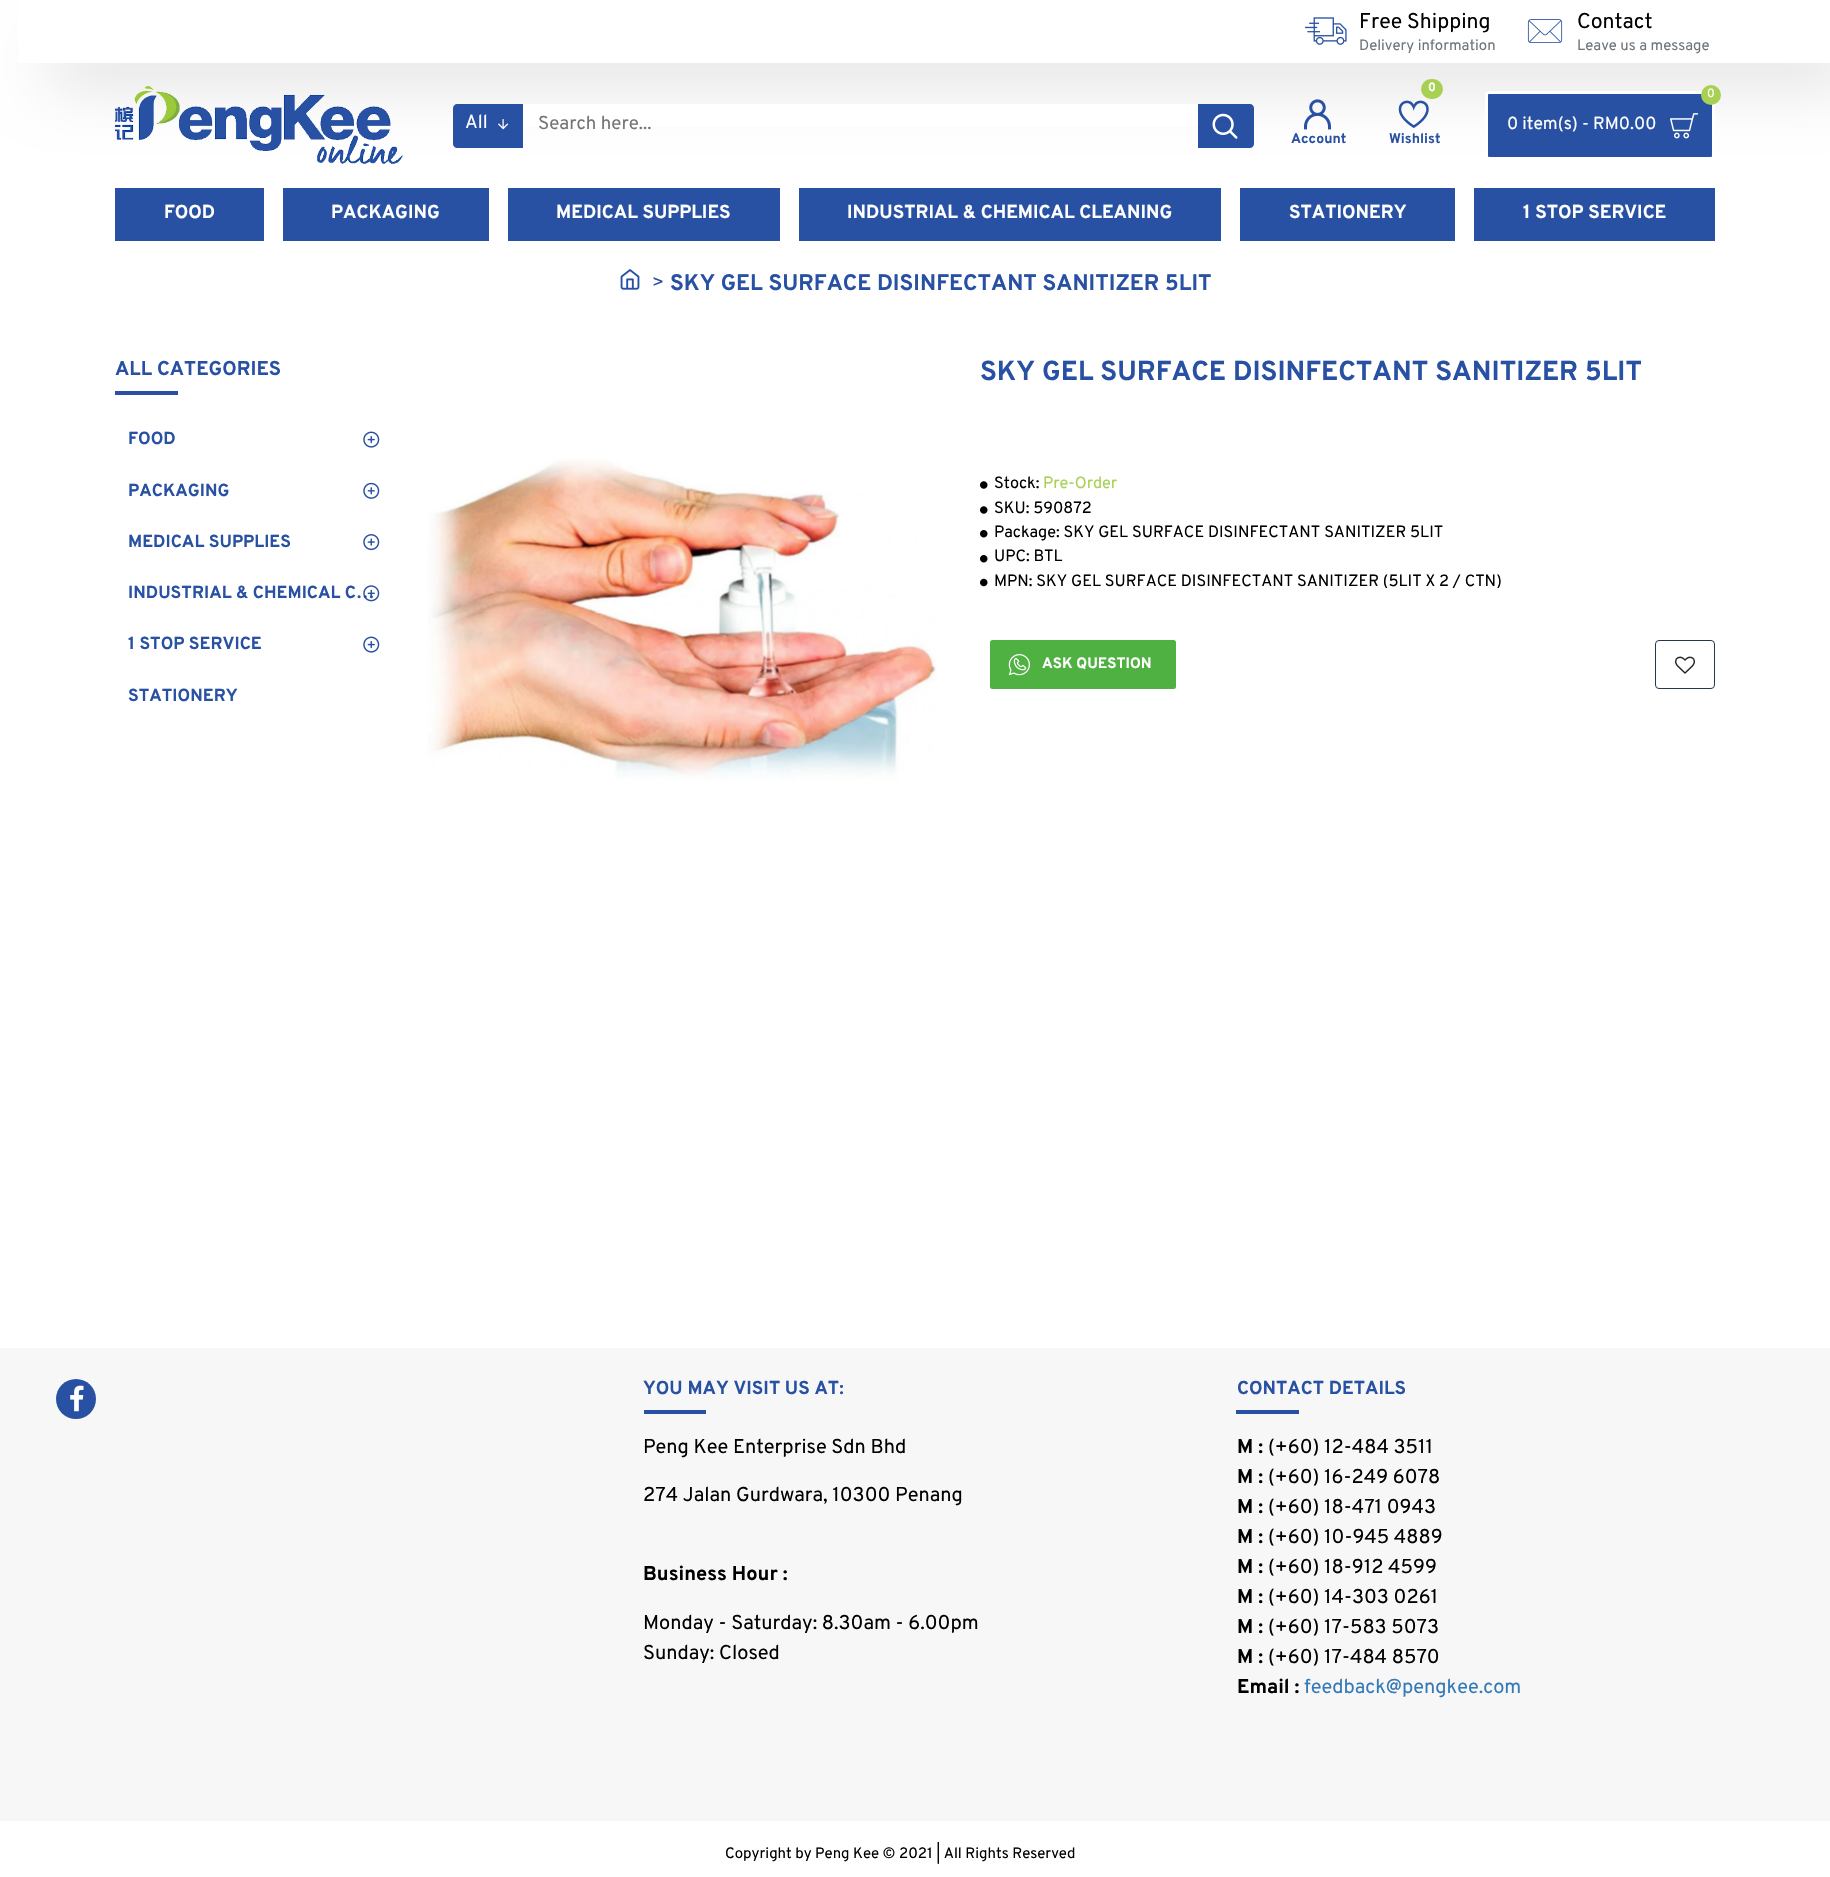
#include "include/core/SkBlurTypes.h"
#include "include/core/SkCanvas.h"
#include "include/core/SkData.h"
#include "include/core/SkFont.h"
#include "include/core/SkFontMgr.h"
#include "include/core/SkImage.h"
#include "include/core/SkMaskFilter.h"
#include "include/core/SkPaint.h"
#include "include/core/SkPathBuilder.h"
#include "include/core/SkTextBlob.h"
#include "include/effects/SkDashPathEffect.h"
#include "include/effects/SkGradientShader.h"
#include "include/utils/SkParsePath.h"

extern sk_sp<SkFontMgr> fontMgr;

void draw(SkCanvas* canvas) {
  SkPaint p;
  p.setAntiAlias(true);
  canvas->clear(SK_ColorWHITE);
  p.setColor(SkColorSetARGB(38, 0, 0, 0));
  p.setMaskFilter(SkMaskFilter::MakeBlur(kNormal_SkBlurStyle, 31));
  canvas->drawRect(SkRect::MakeLTRB(50, 44, 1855, 81), p);
  p.setMaskFilter(nullptr);
  p.setColor(SK_ColorWHITE);
  canvas->drawRect(SkRect::MakeLTRB(18, 0, 1830, 63), p);
  canvas->drawImageRect(SkImages::DeferredFromEncodedData(SkData::MakeFromFileName("images/1.png")), SkRect::MakeLTRB(1305, 17, 1347, 45), SkSamplingOptions());
  canvas->drawImageRect(SkImages::DeferredFromEncodedData(SkData::MakeFromFileName("images/2.png")), SkRect::MakeLTRB(1527, 19, 1563, 43), SkSamplingOptions());
  canvas->drawImageRect(SkImages::DeferredFromEncodedData(SkData::MakeFromFileName("images/3.png")), SkRect::MakeLTRB(115, 86, 403, 164), SkSamplingOptions());
  p.setColor(SkColorSetRGB(40, 81, 163));
  canvas->drawPath(SkPathBuilder().moveTo(457, 104).lineTo(523, 104).lineTo(523, 148).lineTo(457, 148).cubicTo(455, 148, 453, 146, 453, 144).lineTo(453, 108).cubicTo(453, 106, 455, 104, 457, 104).close().detach(), p);
  canvas->drawImageRect(SkImages::DeferredFromEncodedData(SkData::MakeFromFileName("images/4.png")), SkRect::MakeLTRB(498, 119, 509, 130), SkSamplingOptions());
  p.setColor(SK_ColorWHITE);
  canvas->drawRect(SkRect::MakeLTRB(523, 104, 1198, 127), p);
  p.setColor(SkColorSetRGB(40, 81, 163));
  canvas->drawPath(SkPathBuilder().moveTo(1198, 104).lineTo(1250, 104).cubicTo(1252, 104, 1254, 106, 1254, 108).lineTo(1254, 144).cubicTo(1254, 146, 1252, 148, 1250, 148).lineTo(1198, 148).close().detach(), p);
  canvas->drawImageRect(SkImages::DeferredFromEncodedData(SkData::MakeFromFileName("images/5.png")), SkRect::MakeLTRB(1212, 113, 1238, 139), SkSamplingOptions());
  canvas->drawImageRect(SkImages::DeferredFromEncodedData(SkData::MakeFromFileName("images/6.png")), SkRect::MakeLTRB(1304, 99, 1331, 130), SkSamplingOptions());
  p.setColor(SkColorSetRGB(168, 209, 84));
  canvas->drawRoundRect(SkRect::MakeLTRB(1421, 79, 1443, 99), 10, 10, p);
  canvas->drawImageRect(SkImages::DeferredFromEncodedData(SkData::MakeFromFileName("images/7.png")), SkRect::MakeLTRB(1398, 100, 1429, 128), SkSamplingOptions());
  p.setColor(SkColorSetRGB(40, 81, 163));
  canvas->drawRoundRect(SkRect::MakeLTRB(1486.5f, 92.5f, 1713.5f, 158.5f), 2.5f, 2.5f, p);
  p.setStyle(SkPaint::kStroke_Style);
  p.setStrokeWidth(3);
  p.setColor(SK_ColorWHITE);
  canvas->drawRoundRect(SkRect::MakeLTRB(1486.5f, 92.5f, 1713.5f, 158.5f), 2.5f, 2.5f, p);
  p.setStyle(SkPaint::kFill_Style);
  p.setColor(SkColorSetRGB(168, 209, 84));
  canvas->drawCircle(1711, 95, 10, p);
  canvas->drawImageRect(SkImages::DeferredFromEncodedData(SkData::MakeFromFileName("images/8.png")), SkRect::MakeLTRB(1670, 113, 1699, 139), SkSamplingOptions());
  p.setColor(SkColorSetRGB(40, 81, 163));
  canvas->drawRect(SkRect::MakeLTRB(115, 188, 264, 241), p);
  canvas->drawRect(SkRect::MakeLTRB(283, 188, 489, 241), p);
  canvas->drawRect(SkRect::MakeLTRB(508, 188, 780, 241), p);
  canvas->drawRect(SkRect::MakeLTRB(799, 188, 1221, 241), p);
  canvas->drawRect(SkRect::MakeLTRB(1240, 188, 1455, 241), p);
  canvas->drawRect(SkRect::MakeLTRB(1474, 188, 1715, 241), p);
  canvas->drawImageRect(SkImages::DeferredFromEncodedData(SkData::MakeFromFileName("images/9.png")), SkRect::MakeLTRB(620, 269, 640, 290), SkSamplingOptions());
  canvas->drawRect(SkRect::MakeLTRB(115, 391, 178, 395), p);
  canvas->drawImageRect(SkImages::DeferredFromEncodedData(SkData::MakeFromFileName("images/10.png")), SkRect::MakeLTRB(363, 431, 380, 448), SkSamplingOptions());
  canvas->drawImageRect(SkImages::DeferredFromEncodedData(SkData::MakeFromFileName("images/11.png")), SkRect::MakeLTRB(363, 482, 380, 499), SkSamplingOptions());
  canvas->drawImageRect(SkImages::DeferredFromEncodedData(SkData::MakeFromFileName("images/12.png")), SkRect::MakeLTRB(363, 534, 380, 551), SkSamplingOptions());
  canvas->drawImageRect(SkImages::DeferredFromEncodedData(SkData::MakeFromFileName("images/10.png")), SkRect::MakeLTRB(363, 636, 380, 653), SkSamplingOptions());
  canvas->drawImageRect(SkImages::DeferredFromEncodedData(SkData::MakeFromFileName("images/14.png")), SkRect::MakeLTRB(428, 458, 937, 780), SkSamplingOptions());
  canvas->drawImageRect(SkImages::DeferredFromEncodedData(SkData::MakeFromFileName("images/15.png")), SkRect::MakeLTRB(980, 481, 988, 489), SkSamplingOptions());
  canvas->drawImageRect(SkImages::DeferredFromEncodedData(SkData::MakeFromFileName("images/15.png")), SkRect::MakeLTRB(980, 506, 988, 514), SkSamplingOptions());
  canvas->drawImageRect(SkImages::DeferredFromEncodedData(SkData::MakeFromFileName("images/16.png")), SkRect::MakeLTRB(980, 530, 988, 538), SkSamplingOptions());
  canvas->drawImageRect(SkImages::DeferredFromEncodedData(SkData::MakeFromFileName("images/16.png")), SkRect::MakeLTRB(980, 555, 988, 563), SkSamplingOptions());
  canvas->drawImageRect(SkImages::DeferredFromEncodedData(SkData::MakeFromFileName("images/17.png")), SkRect::MakeLTRB(980, 578, 988, 587), SkSamplingOptions());
  p.setColor(SkColorSetRGB(78, 177, 66));
  canvas->drawRoundRect(SkRect::MakeLTRB(990, 640, 1176, 689), 2.5f, 2.5f, p);
  canvas->drawImageRect(SkImages::DeferredFromEncodedData(SkData::MakeFromFileName("images/18.png")), SkRect::MakeLTRB(1008, 654, 1030, 676), SkSamplingOptions());
  p.setStyle(SkPaint::kStroke_Style);
  p.setStrokeWidth(1);
  p.setColor(SkColorSetRGB(35, 56, 81));
  canvas->drawRoundRect(SkRect::MakeLTRB(1655.5f, 640.5f, 1714.5f, 688.5f), 3.5f, 3.5f, p);
  canvas->drawImageRect(SkImages::DeferredFromEncodedData(SkData::MakeFromFileName("images/19.png")), SkRect::MakeLTRB(1675, 656, 1695, 674), SkSamplingOptions());
  p.setStyle(SkPaint::kFill_Style);
  p.setColor(SkColorSetRGB(247, 247, 247));
  canvas->drawRect(SkRect::MakeLTRB(0, 1348, 1830, 1821), p);
  p.setColor(SkColorSetRGB(40, 81, 163));
  canvas->drawCircle(76, 1399, 20, p);
  canvas->drawImageRect(SkImages::DeferredFromEncodedData(SkData::MakeFromFileName("images/20.png")), SkRect::MakeLTRB(70, 1385, 84, 1412), SkSamplingOptions());
  canvas->drawRect(SkRect::MakeLTRB(644, 1410, 706, 1414), p);
  canvas->drawRect(SkRect::MakeLTRB(1236, 1410, 1299, 1414), p);
  SkFont font1(fontMgr->matchFamilyStyle("Overpass", SkFontStyle::Normal()), 21.25f);
  font1.setSubpixel(true);
  p.setColor(SK_ColorBLACK);
  canvas->drawString("Free Shipping", 1359, 28, font1, p);
  SkFont font2(fontMgr->matchFamilyStyle("Overpass", SkFontStyle::Normal()), 14.9f);
  font2.setSubpixel(true);
  p.setColor(SkColorSetRGB(109, 118, 125));
  canvas->drawString("Delivery information", 1359, 50, font2, p);
  p.setColor(SK_ColorBLACK);
  canvas->drawString("Contact", 1577, 28, font1, p);
  p.setColor(SkColorSetRGB(109, 118, 125));
  canvas->drawString("Leave us a message", 1577, 50, font2, p);
  SkFont font3(fontMgr->matchFamilyStyle("Overpass", SkFontStyle::Normal()), 18.75f);
  font3.setSubpixel(true);
  p.setColor(SK_ColorWHITE);
  canvas->drawString("All", 465, 128, font3, p);
  p.setColor(SkColorSetRGB(117, 117, 117));
  canvas->drawString("Search here...", 538, 129, font3, p);
  SkFont font4(fontMgr->matchFamilyStyle("Overpass", SkFontStyle::Bold()), 14);
  font4.setSubpixel(true);
  p.setColor(SkColorSetRGB(40, 81, 163));
  canvas->drawString("Account", 1291, 143, font4, p);
  SkFont font5(fontMgr->matchFamilyStyle("Overpass", SkFontStyle::Bold()), 12);
  font5.setSubpixel(true);
  p.setColor(SK_ColorWHITE);
  canvas->drawString("0", 1428, 91, font5, p);
  p.setColor(SkColorSetRGB(40, 81, 163));
  canvas->drawString("Wishlist", 1389, 143, font4, p);
  SkFont font6(fontMgr->matchFamilyStyle("Overpass", SkFontStyle::Normal()), 12);
  font6.setSubpixel(true);
  p.setColor(SK_ColorWHITE);
  canvas->drawString("0", 1707, 97, font6, p);
  SkFont font7(fontMgr->matchFamilyStyle("Overpass", SkFontStyle::Normal()), 17.5f);
  font7.setSubpixel(true);
  canvas->drawString("0 item(s) - RM0.00", 1507, 129, font7, p);
  SkFont font8(fontMgr->matchFamilyStyle("Overpass", SkFontStyle::Bold()), 18.75f);
  font8.setSubpixel(true);
  canvas->drawString("FOOD", 164, 218, font8, p);
  canvas->drawString("PACKAGING", 331, 218, font8, p);
  canvas->drawString("MEDICAL SUPPLIES", 556, 218, font8, p);
  canvas->drawString("INDUSTRIAL & CHEMICAL CLEANING", 847, 218, font8, p);
  canvas->drawString("STATIONERY", 1289, 218, font8, p);
  canvas->drawString("1 STOP SERVICE", 1523, 218, font8, p);
  p.setColor(SkColorSetRGB(40, 81, 163));
  canvas->drawString(">", 652, 288, font3, p);
  SkFont font9(fontMgr->matchFamilyStyle("Overpass", SkFontStyle::Bold()), 22.5f);
  font9.setSubpixel(true);
  canvas->drawString("SKY GEL SURFACE DISINFECTANT SANITIZER 5LIT", 670, 290, font9, p);
  SkFont font10(fontMgr->matchFamilyStyle("Overpass", SkFontStyle::Bold()), 20);
  font10.setSubpixel(true);
  canvas->drawString("ALL CATEGORIES", 115, 375, font10, p);
  SkFont font11(fontMgr->matchFamilyStyle("Overpass", SkFontStyle::Bold()), 17.5f);
  font11.setSubpixel(true);
  canvas->drawString("FOOD", 128, 444, font11, p);
  canvas->drawString("PACKAGING", 128, 496, font11, p);
  canvas->drawString("MEDICAL SUPPLIES", 128, 547, font11, p);
  canvas->drawString("INDUSTRIAL & CHEMICAL C…", 128, 598, font11, p);
  canvas->drawImageRect(SkImages::DeferredFromEncodedData(SkData::MakeFromFileName("images/13.png")), SkRect::MakeLTRB(363, 585, 380, 602), SkSamplingOptions());
  canvas->drawString("1 STOP SERVICE", 128, 649, font11, p);
  canvas->drawString("STATIONERY", 128, 701, font11, p);
  SkFont font12(fontMgr->matchFamilyStyle("Overpass", SkFontStyle::Bold()), 27.5f);
  font12.setSubpixel(true);
  canvas->drawString("SKY GEL SURFACE DISINFECTANT SANITIZER 5LIT", 980, 380, font12, p);
  SkFont font13(fontMgr->matchFamilyStyle("Overpass", SkFontStyle::Normal()), 16.25f);
  font13.setSubpixel(true);
  p.setColor(SK_ColorBLACK);
  canvas->drawString("Stock:", 994, 488, font13, p);
  p.setColor(SkColorSetRGB(168, 209, 84));
  canvas->drawString("Pre-Order", 1043, 488, font13, p);
  p.setColor(SK_ColorBLACK);
  canvas->drawString("SKU: 590872", 994, 513, font13, p);
  canvas->drawString("Package: SKY GEL SURFACE DISINFECTANT SANITIZER 5LIT", 994, 537, font13, p);
  canvas->drawString("UPC: BTL", 994, 561, font13, p);
  canvas->drawString("MPN: SKY GEL SURFACE DISINFECTANT SANITIZER (5LIT X 2 / CTN)", 994, 586, font13, p);
  SkFont font14(fontMgr->matchFamilyStyle("Overpass", SkFontStyle::Bold()), 15);
  font14.setSubpixel(true);
  p.setColor(SK_ColorWHITE);
  canvas->drawString("ASK QUESTION", 1042, 668, font14, p);
  p.setColor(SkColorSetRGB(40, 81, 163));
  canvas->drawString("YOU MAY VISIT US AT:", 643, 1394, font8, p);
  SkFont font15(fontMgr->matchFamilyStyle("Overpass", SkFontStyle::Normal()), 20);
  font15.setSubpixel(true);
  p.setColor(SK_ColorBLACK);
  canvas->drawString("Peng Kee Enterprise Sdn Bhd", 643, 1453, font15, p);
  canvas->drawString("274 Jalan Gurdwara, 10300 Penang", 643, 1501, font15, p);
  canvas->drawString("Business Hour :", 643, 1580, font10, p);
  canvas->drawString("Monday - Saturday: 8.30am - 6.00pm", 643, 1629, font15, p);
  canvas->drawString("Sunday: Closed", 643, 1659, font15, p);
  p.setColor(SkColorSetRGB(40, 81, 163));
  canvas->drawString("CONTACT DETAILS", 1237, 1394, font8, p);
  p.setColor(SK_ColorBLACK);
  canvas->drawString("M :", 1237, 1453, font10, p);
  canvas->drawString("(+60) 12-484 3511", 1268, 1453, font15, p);
  canvas->drawString("M :", 1237, 1483, font10, p);
  canvas->drawString("(+60) 16-249 6078", 1268, 1483, font15, p);
  canvas->drawString("M :", 1237, 1513, font10, p);
  canvas->drawString("(+60) 18-471 0943", 1268, 1513, font15, p);
  canvas->drawString("M :", 1237, 1543, font10, p);
  canvas->drawString("(+60) 10-945 4889", 1268, 1543, font15, p);
  canvas->drawString("M :", 1237, 1573, font10, p);
  canvas->drawString("(+60) 18-912 4599", 1268, 1573, font15, p);
  canvas->drawString("M :", 1237, 1603, font10, p);
  canvas->drawString("(+60) 14-303 0261", 1268, 1603, font15, p);
  canvas->drawString("M :", 1237, 1633, font10, p);
  canvas->drawString("(+60) 17-583 5073", 1268, 1633, font15, p);
  canvas->drawString("M :", 1237, 1663, font10, p);
  canvas->drawString("(+60) 17-484 8570", 1268, 1663, font15, p);
  canvas->drawString("Email :", 1237, 1693, font10, p);
  p.setColor(SkColorSetRGB(51, 122, 183));
  canvas->drawString("feedback@pengkee.com", 1304, 1693, font15, p);
  SkFont font16(fontMgr->matchFamilyStyle("Overpass", SkFontStyle::Normal()), 15);
  font16.setSubpixel(true);
  p.setColor(SK_ColorBLACK);
  canvas->drawString("Copyright by Peng Kee © 2021 | All Rights Reserved", 725, 1858, font16, p);
}
